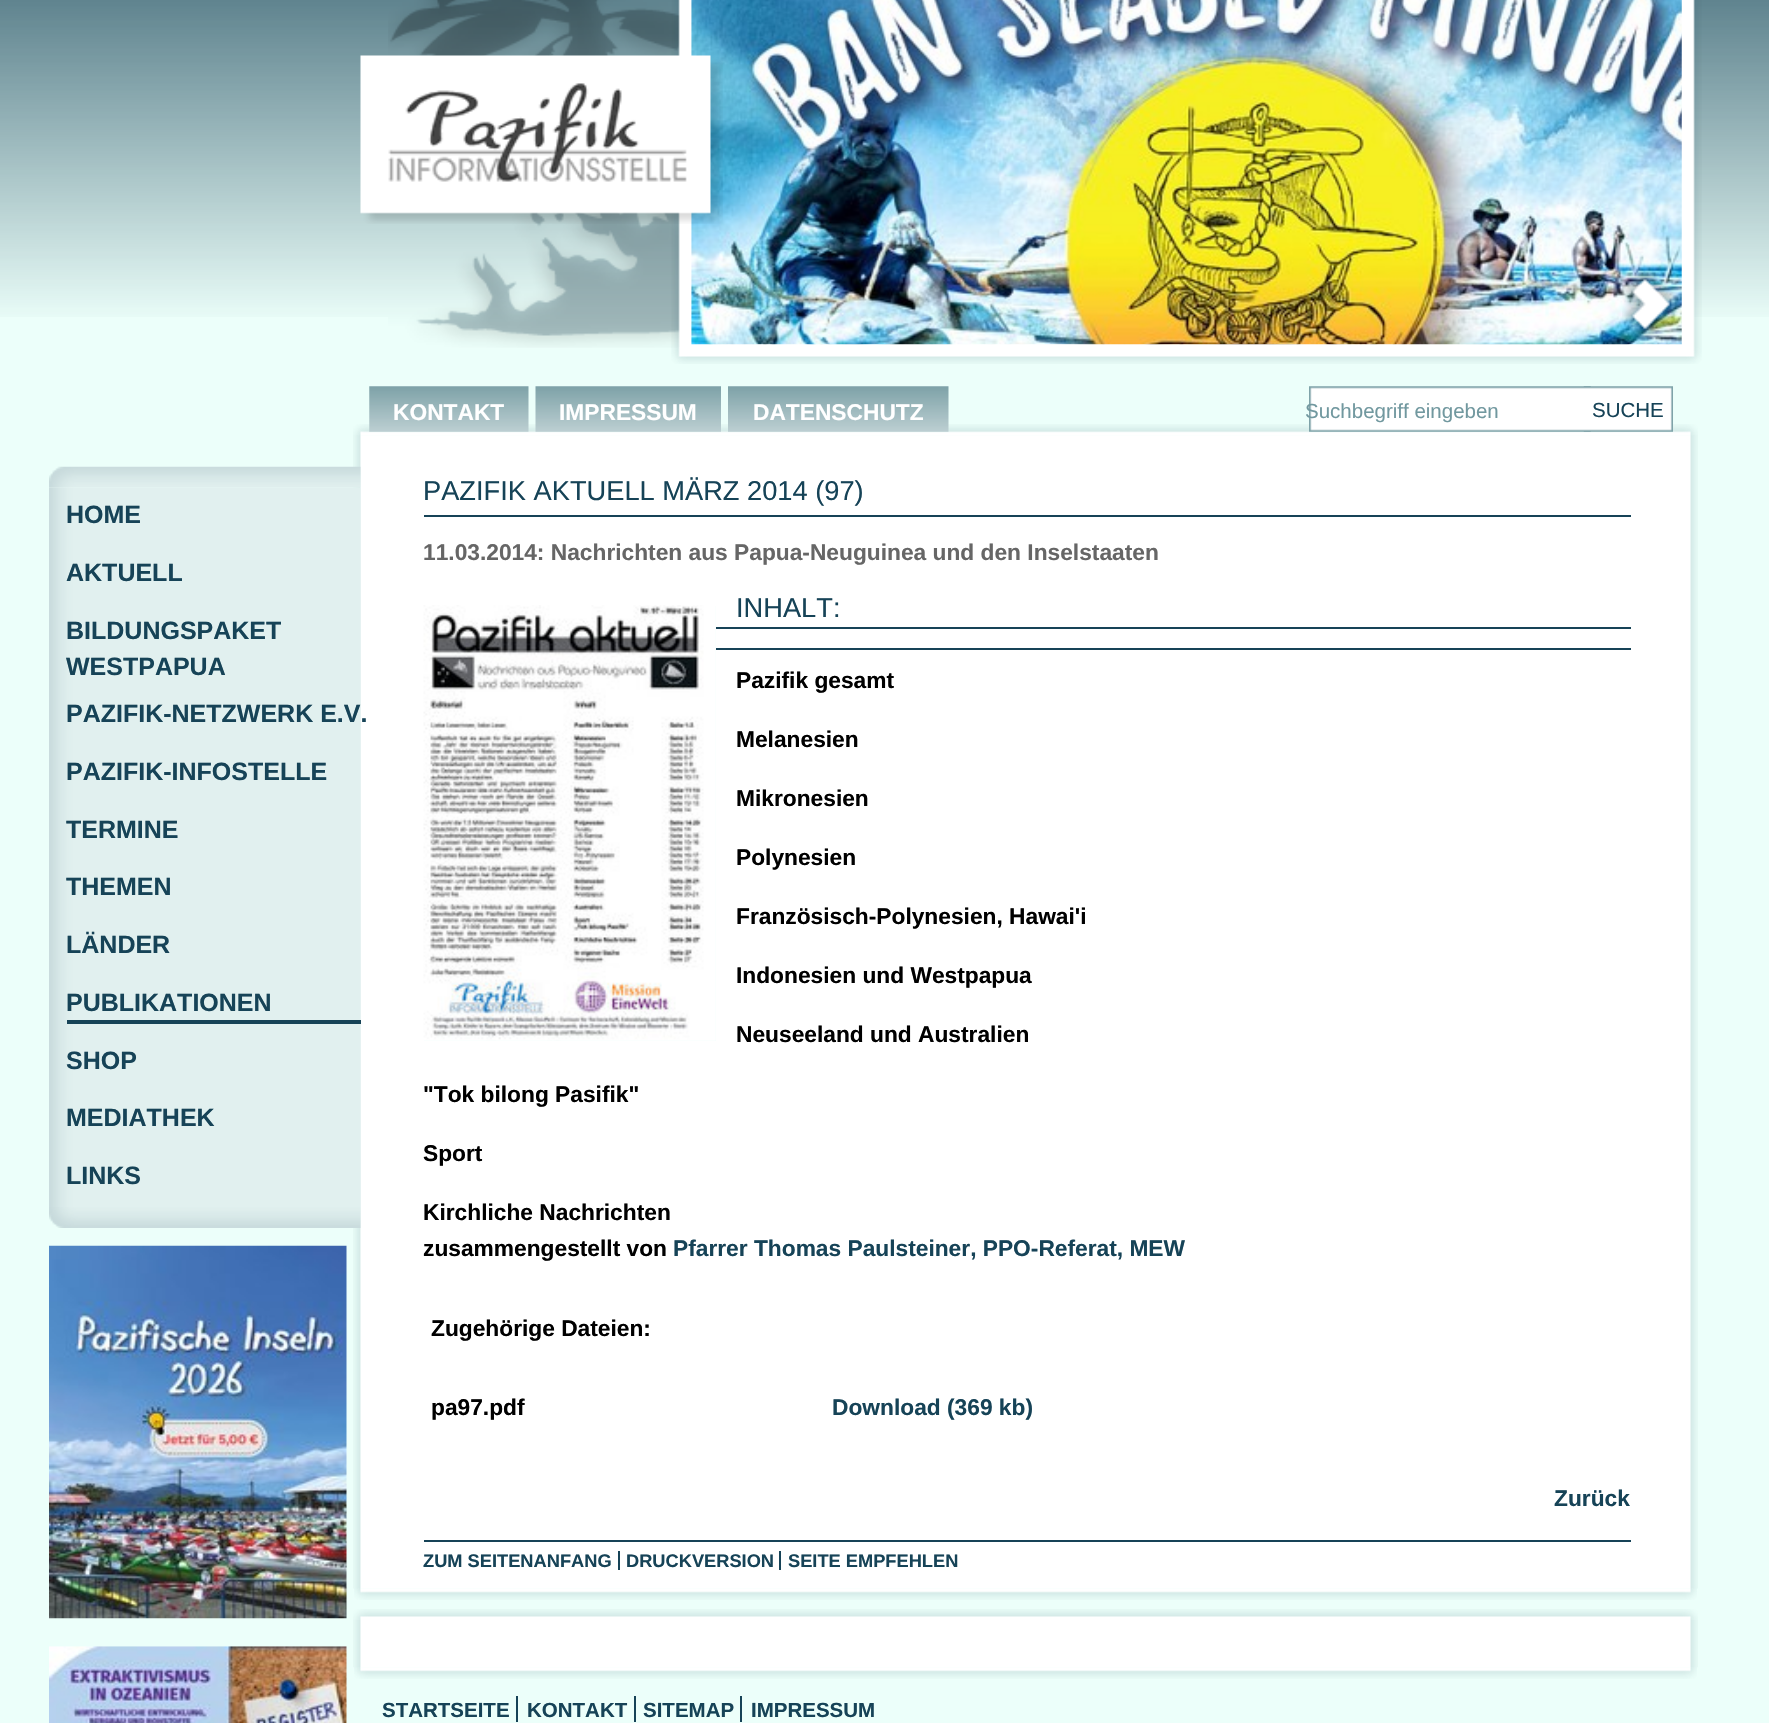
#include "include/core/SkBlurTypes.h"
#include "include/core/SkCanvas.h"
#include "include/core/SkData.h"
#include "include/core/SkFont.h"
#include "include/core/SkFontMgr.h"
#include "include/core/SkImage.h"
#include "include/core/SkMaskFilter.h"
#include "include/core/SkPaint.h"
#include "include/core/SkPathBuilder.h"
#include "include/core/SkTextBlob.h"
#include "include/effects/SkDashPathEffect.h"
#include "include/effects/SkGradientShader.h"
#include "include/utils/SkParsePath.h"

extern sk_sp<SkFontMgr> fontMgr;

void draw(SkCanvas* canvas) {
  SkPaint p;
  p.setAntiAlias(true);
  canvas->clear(SkColorSetRGB(236, 255, 250));
  canvas->drawImageRect(SkImages::DeferredFromEncodedData(SkData::MakeFromFileName("images/1.png")), SkRect::MakeLTRB(0, 0, 1769, 317), SkSamplingOptions());
  canvas->drawImageRect(SkImages::DeferredFromEncodedData(SkData::MakeFromFileName("images/2.png")), SkRect::MakeLTRB(388, 0, 680, 348), SkSamplingOptions());
  canvas->drawImageRect(SkImages::DeferredFromEncodedData(SkData::MakeFromFileName("images/3.png")), SkRect::MakeLTRB(671, 0, 1702, 364), SkSamplingOptions());
  canvas->drawImageRect(SkImages::DeferredFromEncodedData(SkData::MakeFromFileName("images/4.png")), SkRect::MakeLTRB(691, 0, 1682, 345), SkSamplingOptions());
  canvas->drawImageRect(SkImages::DeferredFromEncodedData(SkData::MakeFromFileName("images/5.png")), SkRect::MakeLTRB(1622, 269, 1681, 340), SkSamplingOptions());
  canvas->drawImageRect(SkImages::DeferredFromEncodedData(SkData::MakeFromFileName("images/6.png")), SkRect::MakeLTRB(360, 55, 723, 224), SkSamplingOptions());
  canvas->drawImageRect(SkImages::DeferredFromEncodedData(SkData::MakeFromFileName("images/20.png")), SkRect::MakeLTRB(353, 424, 1698, 436), SkSamplingOptions());
  canvas->drawImageRect(SkImages::DeferredFromEncodedData(SkData::MakeFromFileName("images/7.png")), SkRect::MakeLTRB(369, 386, 529, 432), SkSamplingOptions());
  canvas->drawImageRect(SkImages::DeferredFromEncodedData(SkData::MakeFromFileName("images/8.png")), SkRect::MakeLTRB(535, 386, 721, 432), SkSamplingOptions());
  canvas->drawImageRect(SkImages::DeferredFromEncodedData(SkData::MakeFromFileName("images/9.png")), SkRect::MakeLTRB(728, 386, 949, 432), SkSamplingOptions());
  canvas->drawImageRect(SkImages::DeferredFromEncodedData(SkData::MakeFromFileName("images/10.png")), SkRect::MakeLTRB(1309, 386, 1591, 432), SkSamplingOptions());
  canvas->drawImageRect(SkImages::DeferredFromEncodedData(SkData::MakeFromFileName("images/11.png")), SkRect::MakeLTRB(1583, 386, 1673, 432), SkSamplingOptions());
  canvas->drawImageRect(SkImages::DeferredFromEncodedData(SkData::MakeFromFileName("images/21.png")), SkRect::MakeLTRB(353, 435, 1698, 1589), SkSamplingOptions());
  canvas->drawImageRect(SkImages::DeferredFromEncodedData(SkData::MakeFromFileName("images/12.png")), SkRect::MakeLTRB(49, 466, 361, 488), SkSamplingOptions());
  canvas->drawImageRect(SkImages::DeferredFromEncodedData(SkData::MakeFromFileName("images/13.png")), SkRect::MakeLTRB(49, 488, 361, 1207), SkSamplingOptions());
  p.setColor(SkColorSetRGB(22, 67, 87));
  canvas->drawRect(SkRect::MakeLTRB(67, 1020, 361, 1024), p);
  canvas->drawImageRect(SkImages::DeferredFromEncodedData(SkData::MakeFromFileName("images/14.png")), SkRect::MakeLTRB(49, 1207, 361, 1228), SkSamplingOptions());
  canvas->drawImageRect(SkImages::DeferredFromEncodedData(SkData::MakeFromFileName("images/15.png")), SkRect::MakeLTRB(49, 1245, 347, 1619), SkSamplingOptions());
  canvas->drawImageRect(SkImages::DeferredFromEncodedData(SkData::MakeFromFileName("images/16.png")), SkRect::MakeLTRB(49, 1646, 347, 1723), SkSamplingOptions());
  canvas->drawImageRect(SkImages::DeferredFromEncodedData(SkData::MakeFromFileName("images/17.png")), SkRect::MakeLTRB(353, 1609, 1698, 1620), SkSamplingOptions());
  canvas->drawImageRect(SkImages::DeferredFromEncodedData(SkData::MakeFromFileName("images/18.png")), SkRect::MakeLTRB(353, 1620, 1698, 1668), SkSamplingOptions());
  canvas->drawImageRect(SkImages::DeferredFromEncodedData(SkData::MakeFromFileName("images/19.png")), SkRect::MakeLTRB(354, 1667, 1697, 1679), SkSamplingOptions());
  canvas->drawRect(SkRect::MakeLTRB(516, 1696, 518, 1722), p);
  canvas->drawRect(SkRect::MakeLTRB(634, 1696, 636, 1722), p);
  canvas->drawRect(SkRect::MakeLTRB(740, 1696, 742, 1722), p);
  canvas->drawRect(SkRect::MakeLTRB(424, 515, 1631, 517), p);
  p.setColor(SkColorSetRGB(236, 255, 250));
  canvas->drawRect(SkRect::MakeLTRB(424, 606, 716, 1041), p);
  canvas->drawImageRect(SkImages::DeferredFromEncodedData(SkData::MakeFromFileName("images/22.png")), SkRect::MakeLTRB(423, 605, 716, 1041), SkSamplingOptions());
  p.setColor(SkColorSetRGB(22, 67, 87));
  canvas->drawRect(SkRect::MakeLTRB(716, 627, 1631, 629), p);
  canvas->drawRect(SkRect::MakeLTRB(716, 648, 1631, 650), p);
  canvas->drawRect(SkRect::MakeLTRB(424, 1540, 1631, 1542), p);
  canvas->drawRect(SkRect::MakeLTRB(618, 1551, 620, 1570), p);
  canvas->drawRect(SkRect::MakeLTRB(779, 1551, 781, 1570), p);
  canvas->drawImageRect(SkImages::DeferredFromEncodedData(SkData::MakeFromFileName("images/23.png")), SkRect::MakeLTRB(354, 1588, 1697, 1600), SkSamplingOptions());
  SkFont font1(fontMgr->matchFamilyStyle("Liberation Sans", SkFontStyle::Bold()), 22.75f);
  font1.setSubpixel(true);
  p.setColor(SK_ColorWHITE);
  canvas->drawString("KONTAKT", 393, 420, font1, p);
  canvas->drawString("IMPRESSUM", 559, 420, font1, p);
  canvas->drawString("DATENSCHUTZ", 753, 420, font1, p);
  SkFont font2(fontMgr->matchFamilyStyle("Liberation Sans", SkFontStyle::Normal()), 20.5f);
  font2.setSubpixel(true);
  p.setColor(SkColorSetRGB(113, 152, 159));
  canvas->drawString("Suchbegriff eingeben", 1305, 418, font2, p);
  p.setColor(SkColorSetRGB(22, 67, 87));
  canvas->drawString("SUCHE", 1592, 417, font2, p);
  SkFont font3(fontMgr->matchFamilyStyle("Liberation Sans", SkFontStyle::Bold()), 25);
  font3.setSubpixel(true);
  canvas->drawString("HOME", 66, 523, font3, p);
  canvas->drawString("AKTUELL", 66, 581, font3, p);
  canvas->drawString("BILDUNGSPAKET", 66, 639, font3, p);
  canvas->drawString("WESTPAPUA", 66, 675, font3, p);
  canvas->drawString("PAZIFIK-NETZWERK E.V.", 66, 722, font3, p);
  canvas->drawString("PAZIFIK-INFOSTELLE", 66, 780, font3, p);
  canvas->drawString("TERMINE", 66, 838, font3, p);
  canvas->drawString("THEMEN", 66, 895, font3, p);
  canvas->drawString("LÄNDER", 66, 953, font3, p);
  canvas->drawString("PUBLIKATIONEN", 66, 1011, font3, p);
  canvas->drawString("SHOP", 66, 1069, font3, p);
  canvas->drawString("MEDIATHEK", 66, 1126, font3, p);
  canvas->drawString("LINKS", 66, 1184, font3, p);
  SkFont font4(fontMgr->matchFamilyStyle("Liberation Sans", SkFontStyle::Bold()), 20.5f);
  font4.setSubpixel(true);
  canvas->drawString("STARTSEITE", 382, 1717, font4, p);
  canvas->drawString("KONTAKT", 527, 1717, font4, p);
  canvas->drawString("SITEMAP", 643, 1717, font4, p);
  canvas->drawString("IMPRESSUM", 751, 1717, font4, p);
  SkFont font5(fontMgr->matchFamilyStyle("Liberation Sans", SkFontStyle::Normal()), 27.25f);
  font5.setSubpixel(true);
  canvas->drawString("PAZIFIK AKTUELL MÄRZ 2014 (97)", 423, 500, font5, p);
  p.setColor(SkColorSetRGB(102, 102, 102));
  canvas->drawString("11.03.2014: Nachrichten aus Papua-Neuguinea und den Inselstaaten", 423, 560, font1, p);
  p.setColor(SkColorSetRGB(22, 67, 87));
  canvas->drawString("INHALT:", 736, 617, font5, p);
  p.setColor(SK_ColorBLACK);
  canvas->drawString("Pazifik gesamt", 736, 688, font1, p);
  canvas->drawString("Melanesien", 736, 747, font1, p);
  canvas->drawString("Mikronesien", 736, 806, font1, p);
  canvas->drawString("Polynesien", 736, 865, font1, p);
  canvas->drawString("Französisch-Polynesien, Hawai'i", 736, 924, font1, p);
  canvas->drawString("Indonesien und Westpapua", 736, 983, font1, p);
  canvas->drawString("Neuseeland und Australien", 736, 1042, font1, p);
  canvas->drawString("\"Tok bilong Pasifik\"", 423, 1102, font1, p);
  canvas->drawString("Sport", 423, 1161, font1, p);
  canvas->drawString("Kirchliche Nachrichten", 423, 1220, font1, p);
  canvas->drawString("zusammengestellt von", 423, 1256, font1, p);
  p.setColor(SkColorSetRGB(22, 67, 87));
  canvas->drawString("Pfarrer Thomas Paulsteiner, PPO-Referat, MEW", 673, 1256, font1, p);
  p.setColor(SK_ColorBLACK);
  canvas->drawString("Zugehörige Dateien:", 431, 1336, font1, p);
  canvas->drawString("pa97.pdf", 431, 1415, font1, p);
  p.setColor(SkColorSetRGB(22, 67, 87));
  canvas->drawString("Download (369 kb)", 832, 1415, font1, p);
  canvas->drawString("Zurück", 1554, 1506, font1, p);
  SkFont font6(fontMgr->matchFamilyStyle("Liberation Sans", SkFontStyle::Bold()), 18.25f);
  font6.setSubpixel(true);
  canvas->drawString("ZUM SEITENANFANG", 423, 1567, font6, p);
  canvas->drawString("DRUCKVERSION", 626, 1567, font6, p);
  canvas->drawString("SEITE EMPFEHLEN", 788, 1567, font6, p);
}
